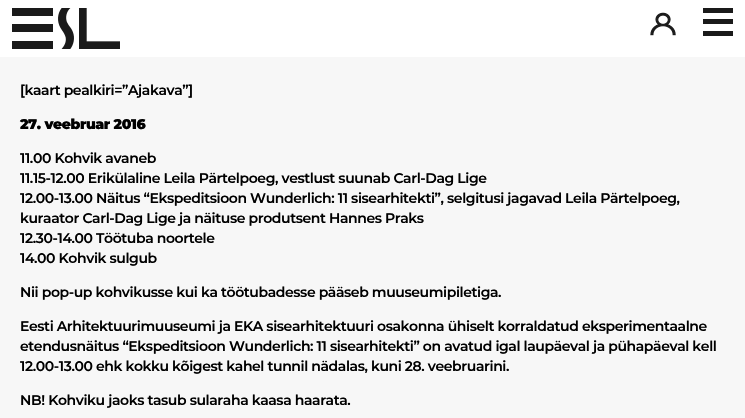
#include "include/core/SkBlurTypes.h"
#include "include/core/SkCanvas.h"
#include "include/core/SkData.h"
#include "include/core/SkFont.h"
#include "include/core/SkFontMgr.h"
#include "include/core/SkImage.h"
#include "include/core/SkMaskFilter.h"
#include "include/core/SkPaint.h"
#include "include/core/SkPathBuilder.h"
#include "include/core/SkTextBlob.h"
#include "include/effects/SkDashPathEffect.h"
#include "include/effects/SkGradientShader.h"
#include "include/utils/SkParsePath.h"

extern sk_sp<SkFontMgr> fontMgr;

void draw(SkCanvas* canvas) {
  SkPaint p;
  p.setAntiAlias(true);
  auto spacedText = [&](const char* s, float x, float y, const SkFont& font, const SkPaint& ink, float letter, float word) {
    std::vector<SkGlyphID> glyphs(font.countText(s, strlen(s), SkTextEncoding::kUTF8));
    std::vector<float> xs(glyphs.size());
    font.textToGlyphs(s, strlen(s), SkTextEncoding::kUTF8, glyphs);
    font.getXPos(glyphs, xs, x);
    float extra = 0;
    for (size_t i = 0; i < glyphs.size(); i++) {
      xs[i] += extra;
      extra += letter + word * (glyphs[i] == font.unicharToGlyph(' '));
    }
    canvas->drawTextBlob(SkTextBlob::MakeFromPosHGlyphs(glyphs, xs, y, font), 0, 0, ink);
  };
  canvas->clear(SkColorSetRGB(247, 247, 247));
  p.setColor(SK_ColorWHITE);
  canvas->drawRect(SkRect::MakeLTRB(0, 0, 745, 57), p);
  canvas->drawImageRect(SkImages::DeferredFromEncodedData(SkData::MakeFromFileName("images/1.png")), SkRect::MakeLTRB(12, 8, 120, 49), SkSamplingOptions());
  canvas->drawImageRect(SkImages::DeferredFromEncodedData(SkData::MakeFromFileName("images/2.png")), SkRect::MakeLTRB(650, 12, 676, 36), SkSamplingOptions());
  p.setColor(SkColorSetRGB(26, 26, 26));
  canvas->drawRect(SkRect::MakeLTRB(703, 8, 733, 13), p);
  canvas->drawRect(SkRect::MakeLTRB(703, 19, 733, 24), p);
  canvas->drawRect(SkRect::MakeLTRB(703, 31, 733, 36), p);
  SkFont font1(fontMgr->matchFamilyStyle("Montserrat", SkFontStyle(600, SkFontStyle::kNormal_Width, SkFontStyle::kUpright_Slant)), 14);
  font1.setSubpixel(true);
  p.setColor(SK_ColorBLACK);
  spacedText("[kaart pealkiri=”Ajakava”]", 20, 95, font1, p, -0.4f, 0);
  SkFont font2(fontMgr->matchFamilyStyle("Montserrat", SkFontStyle(900, SkFontStyle::kNormal_Width, SkFontStyle::kUpright_Slant)), 14);
  font2.setSubpixel(true);
  spacedText("27. veebruar 2016", 20, 129, font2, p, -0.4f, 0);
  spacedText("11.00 Kohvik avaneb", 20, 163, font1, p, -0.4f, 0);
  spacedText("11.15-12.00 Erikülaline Leila Pärtelpoeg, vestlust suunab Carl-Dag Lige", 20, 183, font1, p, -0.4f, 0);
  spacedText("12.00-13.00 Näitus “Ekspeditsioon Wunderlich: 11 sisearhitekti”, selgitusi jagavad Leila Pärtelpoeg,", 20, 203, font1, p, -0.4f, 0);
  spacedText("kuraator Carl-Dag Lige ja näituse produtsent Hannes Praks", 20, 223, font1, p, -0.4f, 0);
  spacedText("12.30-14.00 Töötuba noortele", 20, 243, font1, p, -0.4f, 0);
  spacedText("14.00 Kohvik sulgub", 20, 263, font1, p, -0.4f, 0);
  spacedText("Nii pop-up kohvikusse kui ka töötubadesse pääseb muuseumipiletiga.", 20, 297, font1, p, -0.4f, 0);
  spacedText("Eesti Arhitektuurimuuseumi ja EKA sisearhitektuuri osakonna ühiselt korraldatud eksperimentaalne", 20, 331, font1, p, -0.4f, 0);
  spacedText("etendusnäitus “Ekspeditsioon Wunderlich: 11 sisearhitekti” on avatud igal laupäeval ja pühapäeval kell", 20, 351, font1, p, -0.4f, 0);
  spacedText("12.00-13.00 ehk kokku kõigest kahel tunnil nädalas, kuni 28. veebruarini.", 20, 371, font1, p, -0.4f, 0);
  spacedText("NB! Kohviku jaoks tasub sularaha kaasa haarata.", 20, 405, font1, p, -0.4f, 0);
}
